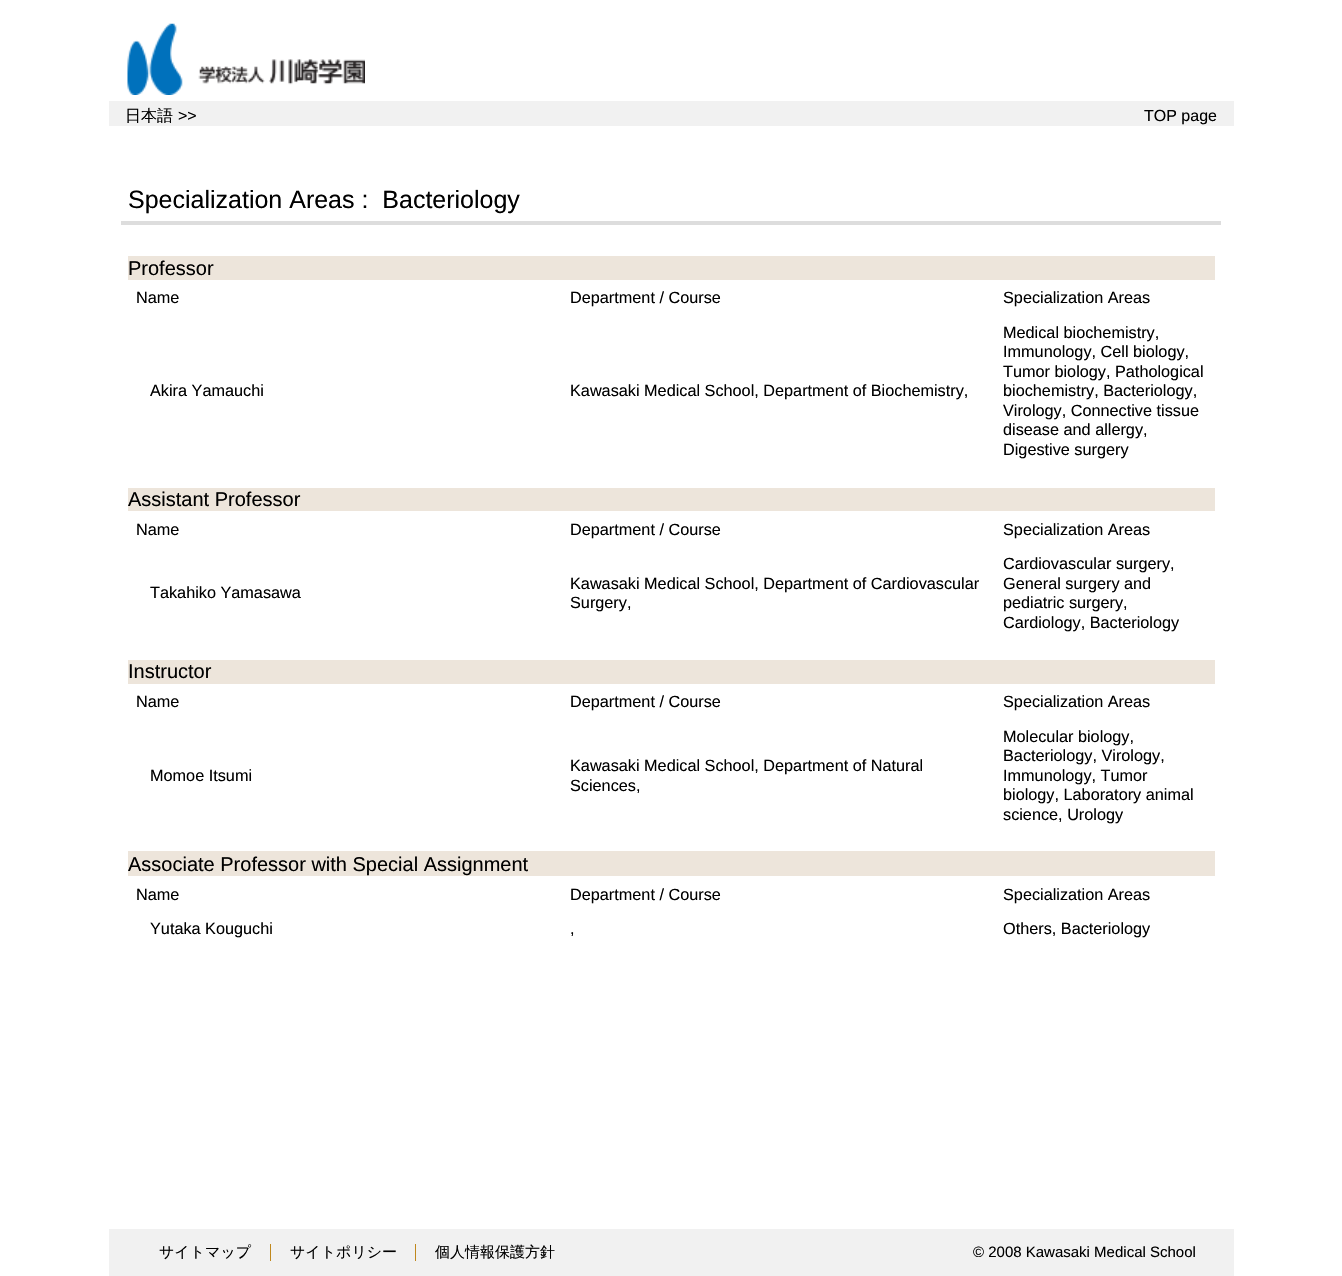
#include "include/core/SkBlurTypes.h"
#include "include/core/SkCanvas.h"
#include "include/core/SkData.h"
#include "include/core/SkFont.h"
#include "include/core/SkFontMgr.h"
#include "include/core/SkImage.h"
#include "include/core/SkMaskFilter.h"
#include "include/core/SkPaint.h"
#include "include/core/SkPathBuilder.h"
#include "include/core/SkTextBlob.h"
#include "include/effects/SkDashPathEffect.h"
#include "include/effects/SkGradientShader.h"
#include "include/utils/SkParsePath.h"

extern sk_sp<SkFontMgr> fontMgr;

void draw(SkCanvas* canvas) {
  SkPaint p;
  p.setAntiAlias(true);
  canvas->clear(SK_ColorWHITE);
  canvas->drawImageRect(SkImages::DeferredFromEncodedData(SkData::MakeFromFileName("images/1.png")), SkRect::MakeLTRB(127, 23, 365, 95), SkSamplingOptions());
  p.setColor(SkColorSetRGB(241, 241, 241));
  canvas->drawRect(SkRect::MakeLTRB(109, 101, 1234, 126), p);
  p.setColor(SkColorSetRGB(221, 221, 221));
  canvas->drawRect(SkRect::MakeLTRB(121, 221, 1221, 225), p);
  p.setColor(SkColorSetRGB(237, 229, 219));
  canvas->drawRect(SkRect::MakeLTRB(128, 256, 1215, 280), p);
  canvas->drawRect(SkRect::MakeLTRB(128, 488, 1215, 511), p);
  canvas->drawRect(SkRect::MakeLTRB(128, 660, 1215, 684), p);
  canvas->drawRect(SkRect::MakeLTRB(128, 851, 1215, 876), p);
  p.setColor(SkColorSetRGB(241, 241, 241));
  canvas->drawRect(SkRect::MakeLTRB(109, 1229, 1234, 1276), p);
  p.setColor(SkColorSetRGB(192, 136, 29));
  canvas->drawRect(SkRect::MakeLTRB(270, 1244, 271, 1261), p);
  canvas->drawRect(SkRect::MakeLTRB(415, 1244, 416, 1261), p);
  SkFont font1(fontMgr->matchFamilyStyle("WenQuanYi Zen Hei", SkFontStyle(500, SkFontStyle::kNormal_Width, SkFontStyle::kUpright_Slant)), 16);
  font1.setSubpixel(true);
  p.setColor(SK_ColorBLACK);
  canvas->drawString("日本語", 125, 121, font1, p);
  SkFont font2(fontMgr->matchFamilyStyle("Liberation Sans", SkFontStyle::Normal()), 16);
  font2.setSubpixel(true);
  canvas->drawString(">>", 178, 121, font2, p);
  canvas->drawString("TOP page", 1144, 121, font2, p);
  SkFont font3(fontMgr->matchFamilyStyle("Liberation Sans", SkFontStyle::Normal()), 25);
  font3.setSubpixel(true);
  canvas->drawString("Specialization Areas :  Bacteriology", 128, 208, font3, p);
  SkFont font4(fontMgr->matchFamilyStyle("Liberation Sans", SkFontStyle::Normal()), 20);
  font4.setSubpixel(true);
  canvas->drawString("Professor", 128, 275, font4, p);
  SkFont font5(fontMgr->matchFamilyStyle("Liberation Sans", SkFontStyle::Normal()), 16.25f);
  font5.setSubpixel(true);
  canvas->drawString("Name", 136, 303, font5, p);
  canvas->drawString("Department / Course", 570, 303, font5, p);
  canvas->drawString("Specialization Areas", 1003, 303, font5, p);
  canvas->drawString("Akira Yamauchi", 150, 396, font5, p);
  canvas->drawString("Kawasaki Medical School, Department of Biochemistry,", 570, 396, font5, p);
  canvas->drawString("Medical biochemistry,", 1003, 338, font5, p);
  canvas->drawString("Immunology, Cell biology,", 1003, 357, font5, p);
  canvas->drawString("Tumor biology, Pathological", 1003, 377, font5, p);
  canvas->drawString("biochemistry, Bacteriology,", 1003, 396, font5, p);
  canvas->drawString("Virology, Connective tissue", 1003, 416, font5, p);
  canvas->drawString("disease and allergy,", 1003, 435, font5, p);
  canvas->drawString("Digestive surgery", 1003, 455, font5, p);
  canvas->drawString("Assistant Professor", 128, 506, font4, p);
  canvas->drawString("Name", 136, 535, font5, p);
  canvas->drawString("Department / Course", 570, 535, font5, p);
  canvas->drawString("Specialization Areas", 1003, 535, font5, p);
  canvas->drawString("Takahiko Yamasawa", 150, 598, font5, p);
  canvas->drawString("Kawasaki Medical School, Department of Cardiovascular", 570, 589, font5, p);
  canvas->drawString("Surgery,", 570, 608, font5, p);
  canvas->drawString("Cardiovascular surgery,", 1003, 569, font5, p);
  canvas->drawString("General surgery and", 1003, 589, font5, p);
  canvas->drawString("pediatric surgery,", 1003, 608, font5, p);
  canvas->drawString("Cardiology, Bacteriology", 1003, 628, font5, p);
  canvas->drawString("Instructor", 128, 678, font4, p);
  canvas->drawString("Name", 136, 707, font5, p);
  canvas->drawString("Department / Course", 570, 707, font5, p);
  canvas->drawString("Specialization Areas", 1003, 707, font5, p);
  canvas->drawString("Momoe Itsumi", 150, 781, font5, p);
  canvas->drawString("Kawasaki Medical School, Department of Natural", 570, 771, font5, p);
  canvas->drawString("Sciences,", 570, 791, font5, p);
  canvas->drawString("Molecular biology,", 1003, 742, font5, p);
  canvas->drawString("Bacteriology, Virology,", 1003, 761, font5, p);
  canvas->drawString("Immunology, Tumor", 1003, 781, font5, p);
  canvas->drawString("biology, Laboratory animal", 1003, 800, font5, p);
  canvas->drawString("science, Urology", 1003, 820, font5, p);
  canvas->drawString("Associate Professor with Special Assignment", 128, 871, font4, p);
  canvas->drawString("Name", 136, 900, font5, p);
  canvas->drawString("Department / Course", 570, 900, font5, p);
  canvas->drawString("Specialization Areas", 1003, 900, font5, p);
  canvas->drawString("Yutaka Kouguchi", 150, 934, font5, p);
  canvas->drawString(",", 570, 934, font5, p);
  canvas->drawString("Others, Bacteriology", 1003, 934, font5, p);
  SkFont font6(fontMgr->matchFamilyStyle("WenQuanYi Zen Hei", SkFontStyle(500, SkFontStyle::kNormal_Width, SkFontStyle::kUpright_Slant)), 15);
  font6.setSubpixel(true);
  canvas->drawString("サイトマップ", 159, 1257, font6, p);
  canvas->drawString("サイトポリシー", 290, 1257, font6, p);
  canvas->drawString("個人情報保護方針", 435, 1257, font6, p);
  SkFont font7(fontMgr->matchFamilyStyle("Liberation Sans", SkFontStyle::Normal()), 15);
  font7.setSubpixel(true);
  canvas->drawString("© 2008 Kawasaki Medical School", 973, 1257, font7, p);
}
